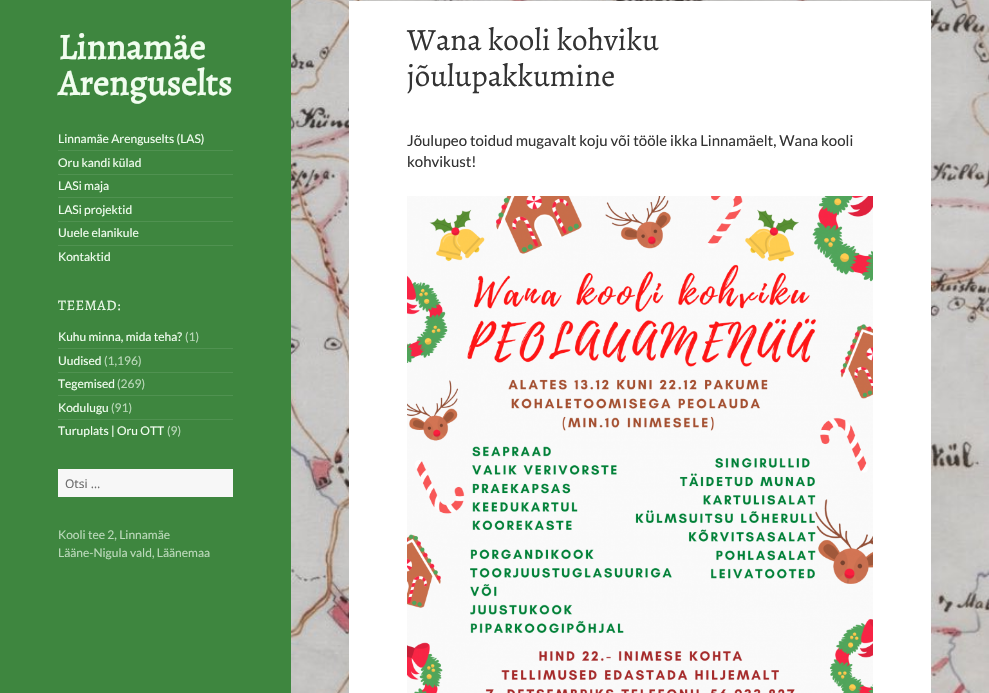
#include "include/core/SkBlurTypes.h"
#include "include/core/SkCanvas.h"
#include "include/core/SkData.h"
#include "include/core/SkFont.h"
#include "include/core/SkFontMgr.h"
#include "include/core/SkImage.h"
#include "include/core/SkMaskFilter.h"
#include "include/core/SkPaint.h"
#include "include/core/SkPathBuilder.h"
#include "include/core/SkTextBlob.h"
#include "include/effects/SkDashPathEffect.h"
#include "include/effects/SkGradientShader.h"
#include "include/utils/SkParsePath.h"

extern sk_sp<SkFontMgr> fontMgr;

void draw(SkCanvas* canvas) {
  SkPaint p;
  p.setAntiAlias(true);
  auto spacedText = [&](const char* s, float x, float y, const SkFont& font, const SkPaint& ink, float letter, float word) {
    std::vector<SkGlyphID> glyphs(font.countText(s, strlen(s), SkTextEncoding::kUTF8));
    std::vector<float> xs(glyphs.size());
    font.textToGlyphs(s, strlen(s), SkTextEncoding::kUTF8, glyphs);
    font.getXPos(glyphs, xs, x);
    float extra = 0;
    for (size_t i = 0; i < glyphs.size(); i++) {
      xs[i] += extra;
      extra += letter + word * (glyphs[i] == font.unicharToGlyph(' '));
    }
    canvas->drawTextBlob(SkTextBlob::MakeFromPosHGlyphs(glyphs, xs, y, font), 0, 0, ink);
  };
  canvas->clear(SK_ColorWHITE);
  canvas->drawImageRect(SkImages::DeferredFromEncodedData(SkData::MakeFromFileName("images/1.png")), SkRect::MakeLTRB(291, 0, 989, 693), SkSamplingOptions());
  p.setColor(SkColorSetRGB(62, 134, 63));
  canvas->drawRect(SkRect::MakeLTRB(0, 0, 291, 693), p);
  p.setColor(SkColorSetRGB(80, 146, 81));
  canvas->drawRect(SkRect::MakeLTRB(58, 150, 233, 151), p);
  canvas->drawRect(SkRect::MakeLTRB(58, 174, 233, 175), p);
  canvas->drawRect(SkRect::MakeLTRB(58, 197, 233, 198), p);
  canvas->drawRect(SkRect::MakeLTRB(58, 221, 233, 222), p);
  canvas->drawRect(SkRect::MakeLTRB(58, 245, 233, 246), p);
  canvas->drawRect(SkRect::MakeLTRB(58, 348, 233, 349), p);
  canvas->drawRect(SkRect::MakeLTRB(58, 372, 233, 373), p);
  canvas->drawRect(SkRect::MakeLTRB(58, 395, 233, 396), p);
  canvas->drawRect(SkRect::MakeLTRB(58, 419, 233, 420), p);
  p.setColor(SkColorSetRGB(247, 247, 247));
  canvas->drawRect(SkRect::MakeLTRB(58, 469, 233, 497), p);
  p.setColor(SK_ColorWHITE);
  canvas->drawRect(SkRect::MakeLTRB(349, 1, 931, 693), p);
  canvas->drawImageRect(SkImages::DeferredFromEncodedData(SkData::MakeFromFileName("images/2.png")), SkRect::MakeLTRB(407, 196, 873, 693), SkSamplingOptions());
  SkFont font1(fontMgr->matchFamilyStyle("Alegreya", SkFontStyle::Bold()), 36);
  font1.setSubpixel(true);
  p.setColor(SkColorSetRGB(241, 253, 239));
  canvas->drawString("Linnamäe", 58, 59, font1, p);
  canvas->drawString("Arenguselts", 58, 95, font1, p);
  SkFont font2(fontMgr->matchFamilyStyle("Lato", SkFontStyle::Normal()), 12);
  font2.setSubpixel(true);
  canvas->drawString("Linnamäe Arenguselts (LAS)", 58, 143, font2, p);
  canvas->drawString("Oru kandi külad", 58, 167, font2, p);
  canvas->drawString("LASi maja", 58, 190, font2, p);
  canvas->drawString("LASi projektid", 58, 214, font2, p);
  canvas->drawString("Uuele elanikule", 58, 237, font2, p);
  canvas->drawString("Kontaktid", 58, 261, font2, p);
  SkFont font3(fontMgr->matchFamilyStyle("Alegreya", SkFontStyle::Normal()), 14.5f);
  font3.setSubpixel(true);
  spacedText("TEEMAD:", 58, 310, font3, p, 0.5f, 0);
  canvas->drawString("Kuhu minna, mida teha?", 58, 341, font2, p);
  p.setColor(SkColorSetRGB(187, 217, 186));
  canvas->drawString("(1)", 185, 341, font2, p);
  p.setColor(SkColorSetRGB(241, 253, 239));
  canvas->drawString("Uudised", 58, 365, font2, p);
  p.setColor(SkColorSetRGB(187, 217, 186));
  canvas->drawString("(1,196)", 104, 365, font2, p);
  p.setColor(SkColorSetRGB(241, 253, 239));
  canvas->drawString("Tegemised", 58, 388, font2, p);
  p.setColor(SkColorSetRGB(187, 217, 186));
  canvas->drawString("(269)", 117, 388, font2, p);
  p.setColor(SkColorSetRGB(241, 253, 239));
  canvas->drawString("Kodulugu", 58, 412, font2, p);
  p.setColor(SkColorSetRGB(187, 217, 186));
  canvas->drawString("(91)", 111, 412, font2, p);
  p.setColor(SkColorSetRGB(241, 253, 239));
  canvas->drawString("Turuplats | Oru OTT", 58, 435, font2, p);
  p.setColor(SkColorSetRGB(187, 217, 186));
  canvas->drawString("(9)", 167, 435, font2, p);
  SkFont font4(fontMgr->matchFamilyStyle("Noto Sans", SkFontStyle::Normal()), 12);
  font4.setSubpixel(true);
  p.setColor(SkColorSetRGB(110, 110, 110));
  canvas->drawString("Otsi …", 65, 488, font4, p);
  p.setColor(SkColorSetRGB(187, 217, 186));
  canvas->drawString("Kooli tee 2, Linnamäe", 58, 539, font2, p);
  canvas->drawString("Lääne-Nigula vald, Läänemaa", 58, 557, font2, p);
  SkFont font5(fontMgr->matchFamilyStyle("Alegreya", SkFontStyle::Normal()), 31);
  font5.setSubpixel(true);
  p.setColor(SkColorSetRGB(51, 51, 51));
  canvas->drawString("Wana kooli kohviku", 407, 50, font5, p);
  canvas->drawString("jõulupakkumine", 407, 86, font5, p);
  SkFont font6(fontMgr->matchFamilyStyle("Lato", SkFontStyle::Normal()), 15);
  font6.setSubpixel(true);
  canvas->drawString("Jõulupeo toidud mugavalt koju või tööle ikka Linnamäelt, Wana kooli", 407, 146, font6, p);
  canvas->drawString("kohvikust!", 407, 167, font6, p);
}
